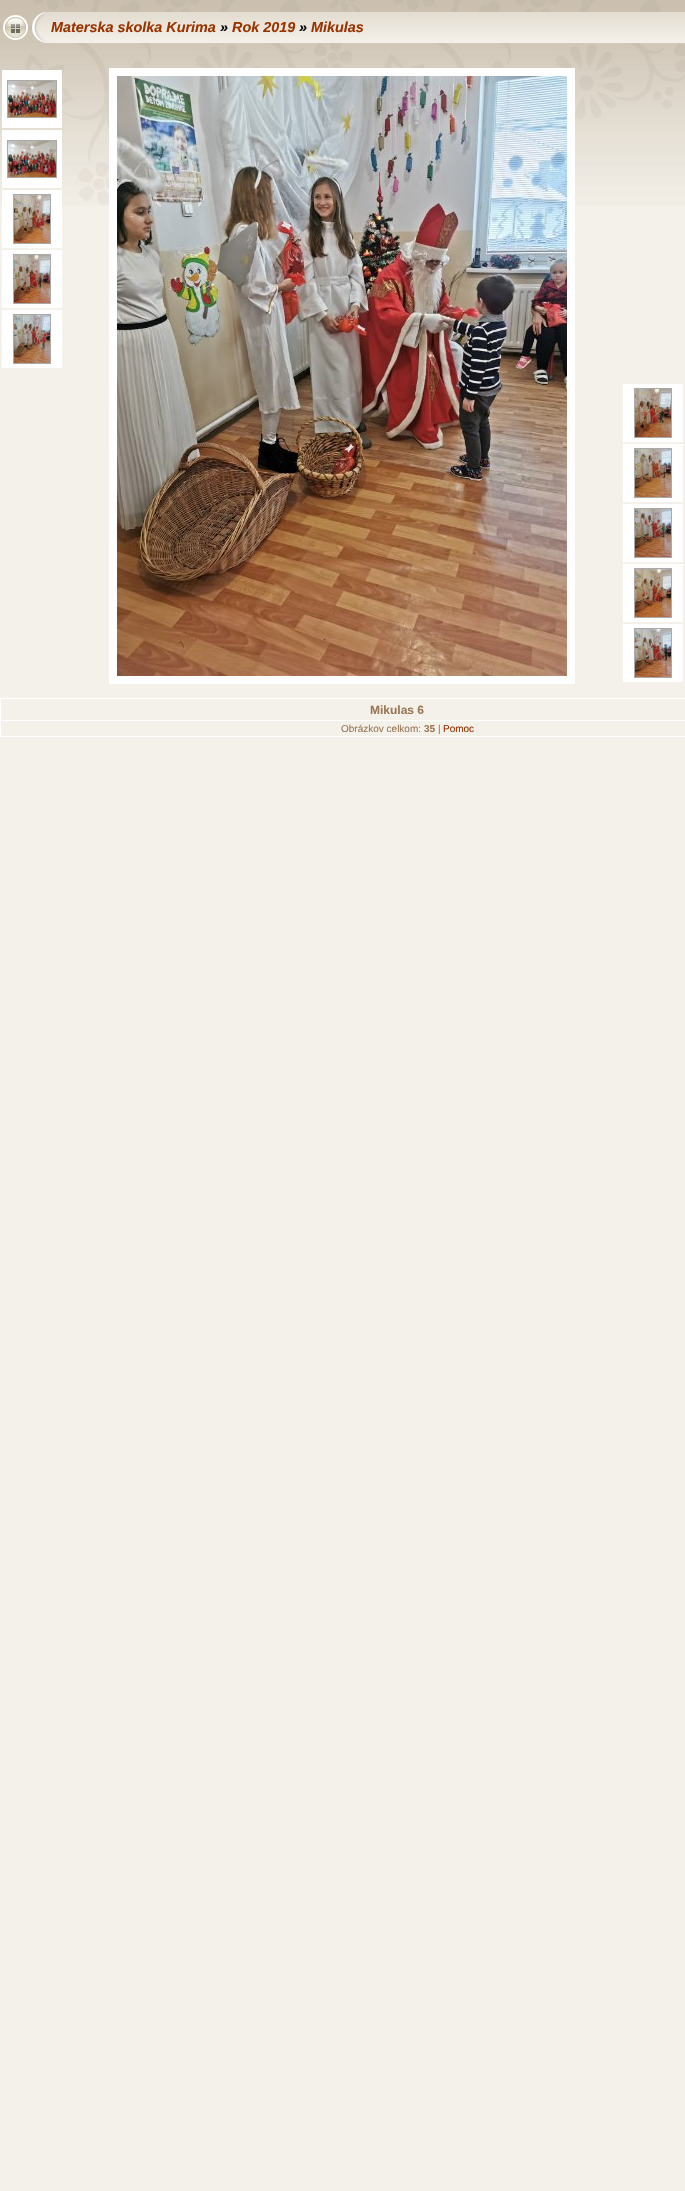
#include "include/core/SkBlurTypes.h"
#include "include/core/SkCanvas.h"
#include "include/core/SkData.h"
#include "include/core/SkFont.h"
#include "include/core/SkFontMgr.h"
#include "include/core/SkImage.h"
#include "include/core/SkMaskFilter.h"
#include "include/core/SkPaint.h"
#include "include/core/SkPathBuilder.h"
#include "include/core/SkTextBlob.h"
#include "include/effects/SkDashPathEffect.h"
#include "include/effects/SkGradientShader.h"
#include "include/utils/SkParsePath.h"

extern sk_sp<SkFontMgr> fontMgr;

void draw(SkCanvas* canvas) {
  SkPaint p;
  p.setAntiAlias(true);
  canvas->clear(SkColorSetRGB(244, 241, 234));
  canvas->drawImageRect(SkImages::DeferredFromEncodedData(SkData::MakeFromFileName("images/1.png")), SkRect::MakeLTRB(0, 0, 685, 206), SkSamplingOptions());
  canvas->drawImageRect(SkImages::DeferredFromEncodedData(SkData::MakeFromFileName("images/2.png")), SkRect::MakeLTRB(3, 15, 28, 40), SkSamplingOptions());
  canvas->drawImageRect(SkImages::DeferredFromEncodedData(SkData::MakeFromFileName("images/3.png")), SkRect::MakeLTRB(32, 12, 51, 43), SkSamplingOptions());
  canvas->drawImageRect(SkImages::DeferredFromEncodedData(SkData::MakeFromFileName("images/4.png")), SkRect::MakeLTRB(51, 12, 685, 43), SkSamplingOptions());
  p.setColor(SK_ColorWHITE);
  canvas->drawRect(SkRect::MakeLTRB(2, 70, 62, 128), p);
  p.setStyle(SkPaint::kStroke_Style);
  p.setStrokeWidth(1);
  p.setColor(SkColorSetRGB(170, 170, 170));
  canvas->drawRect(SkRect::MakeLTRB(7.5f, 80.5f, 56.5f, 117.5f), p);
  canvas->drawImageRect(SkImages::DeferredFromEncodedData(SkData::MakeFromFileName("images/5.png")), SkRect::MakeLTRB(8, 81, 56, 117), SkSamplingOptions());
  p.setStyle(SkPaint::kFill_Style);
  p.setColor(SK_ColorWHITE);
  canvas->drawRect(SkRect::MakeLTRB(2, 130, 62, 188), p);
  p.setStyle(SkPaint::kStroke_Style);
  p.setColor(SkColorSetRGB(170, 170, 170));
  canvas->drawRect(SkRect::MakeLTRB(7.5f, 140.5f, 56.5f, 177.5f), p);
  canvas->drawImageRect(SkImages::DeferredFromEncodedData(SkData::MakeFromFileName("images/6.png")), SkRect::MakeLTRB(8, 141, 56, 177), SkSamplingOptions());
  p.setStyle(SkPaint::kFill_Style);
  p.setColor(SK_ColorWHITE);
  canvas->drawRect(SkRect::MakeLTRB(2, 190, 62, 248), p);
  p.setStyle(SkPaint::kStroke_Style);
  p.setColor(SkColorSetRGB(170, 170, 170));
  canvas->drawRect(SkRect::MakeLTRB(13.5f, 194.5f, 50.5f, 243.5f), p);
  canvas->drawImageRect(SkImages::DeferredFromEncodedData(SkData::MakeFromFileName("images/7.png")), SkRect::MakeLTRB(14, 195, 50, 243), SkSamplingOptions());
  p.setStyle(SkPaint::kFill_Style);
  p.setColor(SK_ColorWHITE);
  canvas->drawRect(SkRect::MakeLTRB(2, 250, 62, 308), p);
  p.setStyle(SkPaint::kStroke_Style);
  p.setColor(SkColorSetRGB(170, 170, 170));
  canvas->drawRect(SkRect::MakeLTRB(13.5f, 254.5f, 50.5f, 303.5f), p);
  canvas->drawImageRect(SkImages::DeferredFromEncodedData(SkData::MakeFromFileName("images/8.png")), SkRect::MakeLTRB(14, 255, 50, 303), SkSamplingOptions());
  p.setStyle(SkPaint::kFill_Style);
  p.setColor(SK_ColorWHITE);
  canvas->drawRect(SkRect::MakeLTRB(2, 310, 62, 368), p);
  p.setStyle(SkPaint::kStroke_Style);
  p.setColor(SkColorSetRGB(170, 170, 170));
  canvas->drawRect(SkRect::MakeLTRB(13.5f, 314.5f, 50.5f, 363.5f), p);
  canvas->drawImageRect(SkImages::DeferredFromEncodedData(SkData::MakeFromFileName("images/9.png")), SkRect::MakeLTRB(14, 315, 50, 363), SkSamplingOptions());
  p.setStrokeWidth(8);
  p.setColor(SK_ColorWHITE);
  canvas->drawRect(SkRect::MakeLTRB(113, 72, 571, 680), p);
  canvas->drawImageRect(SkImages::DeferredFromEncodedData(SkData::MakeFromFileName("images/10.png")), SkRect::MakeLTRB(117, 76, 567, 676), SkSamplingOptions());
  p.setStyle(SkPaint::kFill_Style);
  canvas->drawRect(SkRect::MakeLTRB(623, 384, 683, 442), p);
  p.setStyle(SkPaint::kStroke_Style);
  p.setStrokeWidth(1);
  p.setColor(SkColorSetRGB(170, 170, 170));
  canvas->drawRect(SkRect::MakeLTRB(634.5f, 388.5f, 671.5f, 437.5f), p);
  canvas->drawImageRect(SkImages::DeferredFromEncodedData(SkData::MakeFromFileName("images/11.png")), SkRect::MakeLTRB(635, 389, 671, 437), SkSamplingOptions());
  p.setStyle(SkPaint::kFill_Style);
  p.setColor(SK_ColorWHITE);
  canvas->drawRect(SkRect::MakeLTRB(623, 444, 683, 502), p);
  p.setStyle(SkPaint::kStroke_Style);
  p.setColor(SkColorSetRGB(170, 170, 170));
  canvas->drawRect(SkRect::MakeLTRB(634.5f, 448.5f, 671.5f, 497.5f), p);
  canvas->drawImageRect(SkImages::DeferredFromEncodedData(SkData::MakeFromFileName("images/12.png")), SkRect::MakeLTRB(635, 449, 671, 497), SkSamplingOptions());
  p.setStyle(SkPaint::kFill_Style);
  p.setColor(SK_ColorWHITE);
  canvas->drawRect(SkRect::MakeLTRB(623, 504, 683, 562), p);
  p.setStyle(SkPaint::kStroke_Style);
  p.setColor(SkColorSetRGB(170, 170, 170));
  canvas->drawRect(SkRect::MakeLTRB(634.5f, 508.5f, 671.5f, 557.5f), p);
  canvas->drawImageRect(SkImages::DeferredFromEncodedData(SkData::MakeFromFileName("images/13.png")), SkRect::MakeLTRB(635, 509, 671, 557), SkSamplingOptions());
  p.setStyle(SkPaint::kFill_Style);
  p.setColor(SK_ColorWHITE);
  canvas->drawRect(SkRect::MakeLTRB(623, 564, 683, 622), p);
  p.setStyle(SkPaint::kStroke_Style);
  p.setColor(SkColorSetRGB(170, 170, 170));
  canvas->drawRect(SkRect::MakeLTRB(634.5f, 568.5f, 671.5f, 617.5f), p);
  canvas->drawImageRect(SkImages::DeferredFromEncodedData(SkData::MakeFromFileName("images/14.png")), SkRect::MakeLTRB(635, 569, 671, 617), SkSamplingOptions());
  p.setStyle(SkPaint::kFill_Style);
  p.setColor(SK_ColorWHITE);
  canvas->drawRect(SkRect::MakeLTRB(623, 624, 683, 682), p);
  p.setStyle(SkPaint::kStroke_Style);
  p.setColor(SkColorSetRGB(170, 170, 170));
  canvas->drawRect(SkRect::MakeLTRB(634.5f, 628.5f, 671.5f, 677.5f), p);
  canvas->drawImageRect(SkImages::DeferredFromEncodedData(SkData::MakeFromFileName("images/15.png")), SkRect::MakeLTRB(635, 629, 671, 677), SkSamplingOptions());
  p.setStyle(SkPaint::kFill_Style);
  p.setColor(SK_ColorWHITE);
  canvas->drawRect(SkRect::MakeLTRB(0, 698, 685, 699), p);
  canvas->drawRect(SkRect::MakeLTRB(0, 736, 685, 737), p);
  canvas->drawRect(SkRect::MakeLTRB(0, 698, 1, 737), p);
  canvas->drawRect(SkRect::MakeLTRB(0, 720, 685, 721), p);
  SkFont font1(fontMgr->matchFamilyStyle("Liberation Sans", SkFontStyle::BoldItalic()), 14.4f);
  font1.setSubpixel(true);
  p.setColor(SkColorSetRGB(153, 51, 0));
  canvas->drawString("Materska skolka Kurima", 51, 32, font1, p);
  p.setColor(SK_ColorBLACK);
  canvas->drawString("»", 220, 32, font1, p);
  p.setColor(SkColorSetRGB(153, 51, 0));
  canvas->drawString("Rok 2019", 232, 32, font1, p);
  p.setColor(SK_ColorBLACK);
  canvas->drawString("»", 299, 32, font1, p);
  p.setColor(SkColorSetRGB(153, 51, 0));
  canvas->drawString("Mikulas", 311, 32, font1, p);
  SkFont font2(fontMgr->matchFamilyStyle("Liberation Sans", SkFontStyle::Bold()), 12);
  font2.setSubpixel(true);
  p.setColor(SkColorSetRGB(153, 119, 85));
  canvas->drawString("Mikulas 6", 370, 714, font2, p);
  SkFont font3(fontMgr->matchFamilyStyle("Liberation Sans", SkFontStyle::Normal()), 10);
  font3.setSubpixel(true);
  canvas->drawString("Obrázkov celkom:", 341, 732, font3, p);
  SkFont font4(fontMgr->matchFamilyStyle("Liberation Sans", SkFontStyle::Bold()), 10);
  font4.setSubpixel(true);
  canvas->drawString("35", 424, 732, font4, p);
  canvas->drawString("|", 438, 732, font3, p);
  p.setColor(SkColorSetRGB(153, 51, 0));
  canvas->drawString("Pomoc", 443, 732, font3, p);
}
